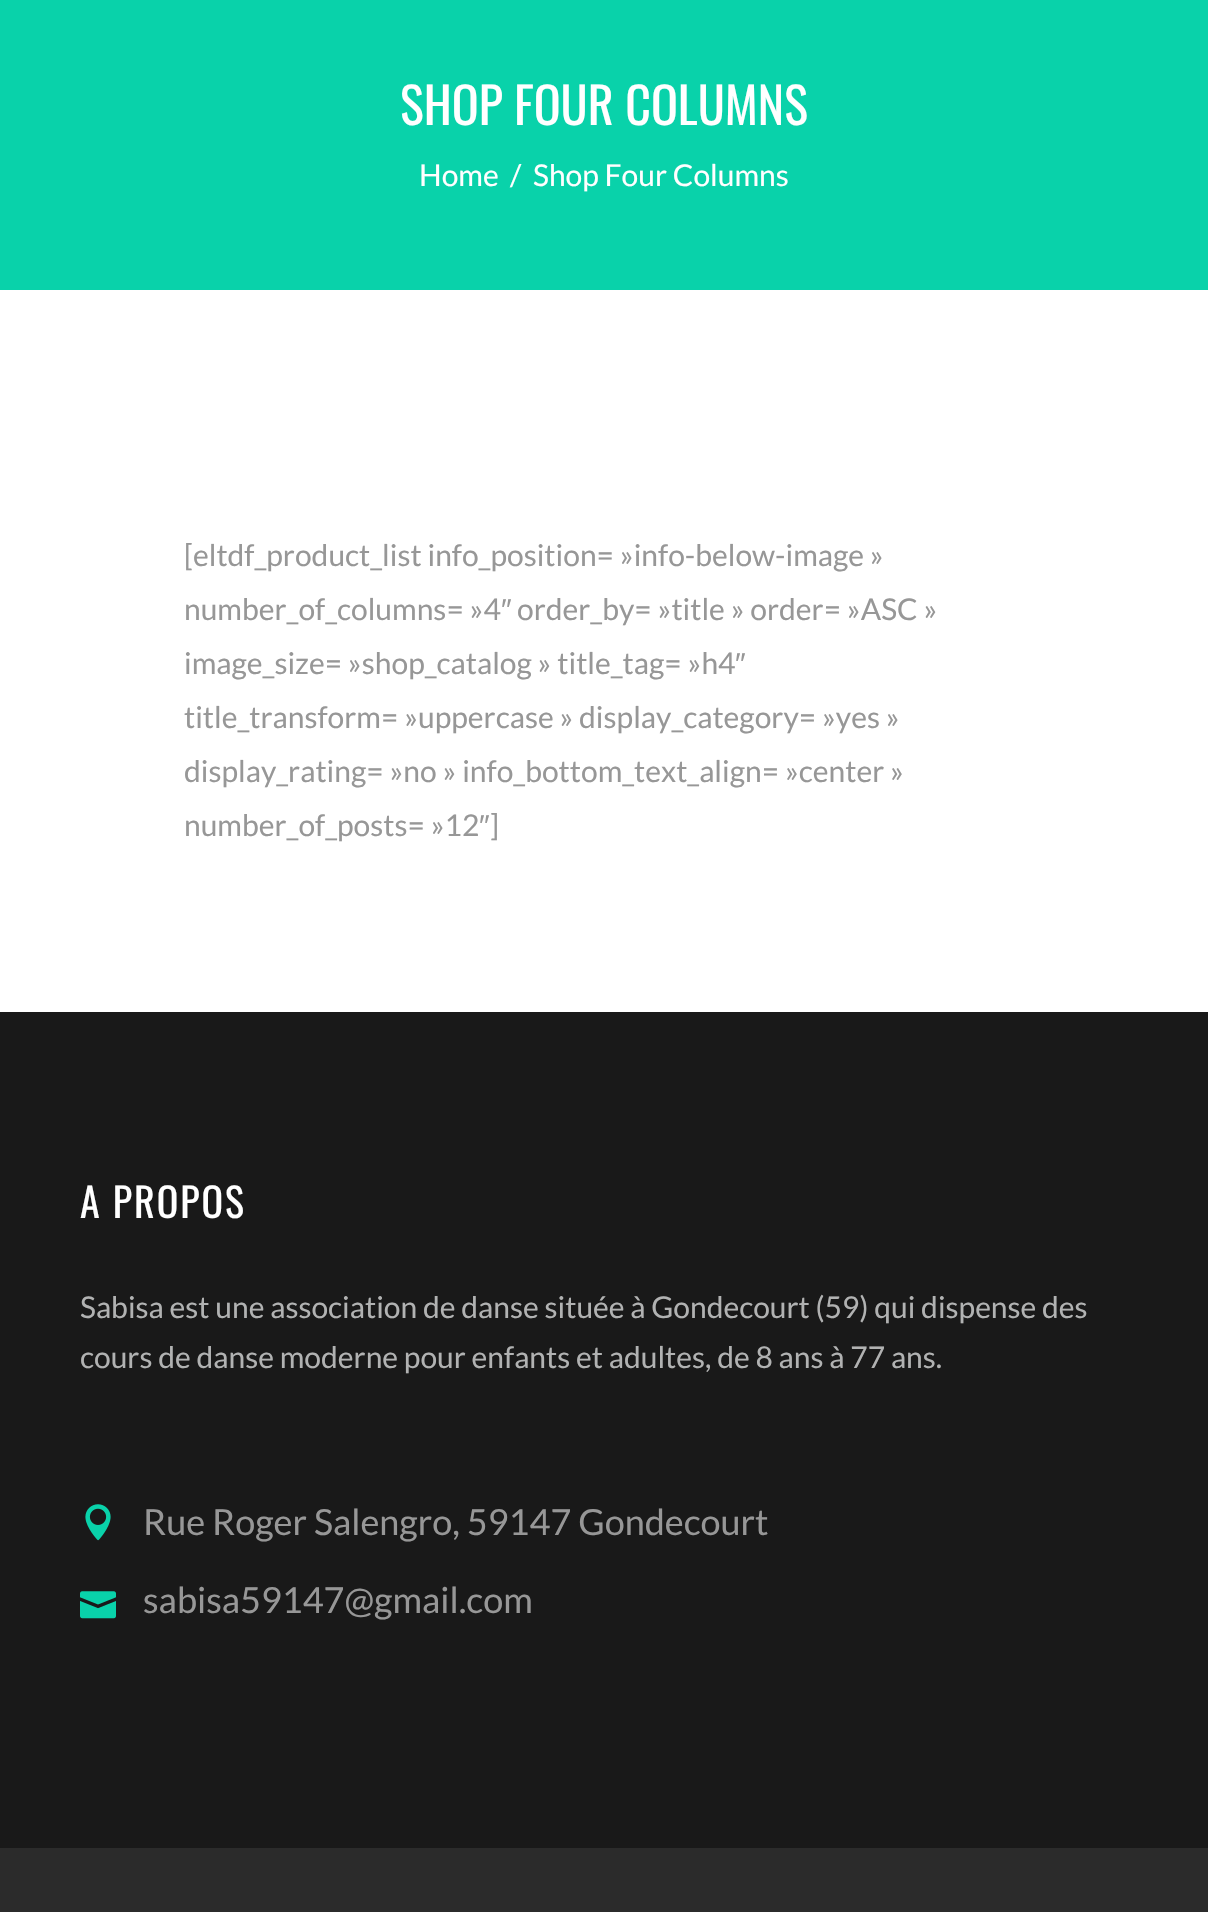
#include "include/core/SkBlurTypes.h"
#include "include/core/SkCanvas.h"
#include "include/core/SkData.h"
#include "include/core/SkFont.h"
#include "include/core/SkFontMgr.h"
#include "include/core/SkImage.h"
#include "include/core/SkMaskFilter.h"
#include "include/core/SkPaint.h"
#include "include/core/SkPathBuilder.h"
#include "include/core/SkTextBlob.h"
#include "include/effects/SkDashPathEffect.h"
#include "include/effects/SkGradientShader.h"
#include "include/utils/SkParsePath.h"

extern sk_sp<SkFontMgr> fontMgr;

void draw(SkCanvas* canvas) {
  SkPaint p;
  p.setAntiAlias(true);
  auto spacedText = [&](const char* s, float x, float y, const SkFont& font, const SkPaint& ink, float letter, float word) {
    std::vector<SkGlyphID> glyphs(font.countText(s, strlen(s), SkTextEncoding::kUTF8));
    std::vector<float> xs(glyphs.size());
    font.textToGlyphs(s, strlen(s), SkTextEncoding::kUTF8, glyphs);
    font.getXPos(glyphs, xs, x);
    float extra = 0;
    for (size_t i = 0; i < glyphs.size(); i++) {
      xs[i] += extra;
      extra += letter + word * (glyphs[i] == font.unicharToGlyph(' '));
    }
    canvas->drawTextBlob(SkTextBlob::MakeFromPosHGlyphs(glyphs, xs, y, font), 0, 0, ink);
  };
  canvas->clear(SK_ColorWHITE);
  p.setColor(SkColorSetRGB(9, 210, 170));
  canvas->drawRect(SkRect::MakeLTRB(0, 0, 1208, 290), p);
  p.setColor(SkColorSetRGB(25, 25, 25));
  canvas->drawRect(SkRect::MakeLTRB(0, 1012, 1208, 1848), p);
  canvas->drawImageRect(SkImages::DeferredFromEncodedData(SkData::MakeFromFileName("images/1.png")), SkRect::MakeLTRB(85, 1504, 111, 1541), SkSamplingOptions());
  canvas->drawImageRect(SkImages::DeferredFromEncodedData(SkData::MakeFromFileName("images/2.png")), SkRect::MakeLTRB(80, 1591, 116, 1619), SkSamplingOptions());
  p.setColor(SkColorSetRGB(43, 43, 43));
  canvas->drawRect(SkRect::MakeLTRB(0, 1848, 1208, 1912), p);
  SkFont font1(fontMgr->matchFamilyStyle("Oswald", SkFontStyle::Normal()), 50);
  font1.setSubpixel(true);
  p.setColor(SK_ColorWHITE);
  canvas->drawString("SHOP FOUR COLUMNS", 400, 125, font1, p);
  SkFont font2(fontMgr->matchFamilyStyle("Lato", SkFontStyle::Normal()), 30);
  font2.setSubpixel(true);
  canvas->drawString("Home", 419, 186, font2, p);
  canvas->drawString("/", 510, 186, font2, p);
  canvas->drawString("Shop Four Columns", 533, 186, font2, p);
  p.setColor(SkColorSetRGB(151, 151, 151));
  canvas->drawString("[eltdf_product_list info_position= »info-below-image »", 184, 566, font2, p);
  canvas->drawString("number_of_columns= »4", 184, 620, font2, p);
  SkFont font3(fontMgr->matchFamilyStyle("Liberation Sans", SkFontStyle::Normal()), 30);
  font3.setSubpixel(true);
  canvas->drawString("″", 501, 620, font3, p);
  canvas->drawString("order_by= »title » order= »ASC »", 517, 620, font2, p);
  canvas->drawString("image_size= »shop_catalog » title_tag= »h4", 184, 674, font2, p);
  canvas->drawString("″", 735, 674, font3, p);
  canvas->drawString("title_transform= »uppercase » display_category= »yes »", 184, 728, font2, p);
  canvas->drawString("display_rating= »no » info_bottom_text_align= »center »", 184, 782, font2, p);
  canvas->drawString("number_of_posts= »12", 184, 836, font2, p);
  canvas->drawString("″", 479, 836, font3, p);
  canvas->drawString("]", 490, 836, font2, p);
  SkFont font4(fontMgr->matchFamilyStyle("Oswald", SkFontStyle::Normal()), 40);
  font4.setSubpixel(true);
  p.setColor(SK_ColorWHITE);
  spacedText("A PROPOS", 80, 1218, font4, p, 2, 0);
  p.setColor(SkColorSetRGB(177, 178, 178));
  canvas->drawString("Sabisa est une association de danse située à Gondecourt (59) qui dispense des", 80, 1318, font2, p);
  canvas->drawString("cours de danse moderne pour enfants et adultes, de 8 ans à 77 ans.", 80, 1368, font2, p);
  SkFont font5(fontMgr->matchFamilyStyle("Lato", SkFontStyle::Normal()), 36);
  font5.setSubpixel(true);
  p.setColor(SkColorSetRGB(151, 151, 151));
  canvas->drawString("Rue Roger Salengro, 59147 Gondecourt", 143, 1535, font5, p);
  canvas->drawString("sabisa59147@gmail.com", 143, 1613, font5, p);
}
